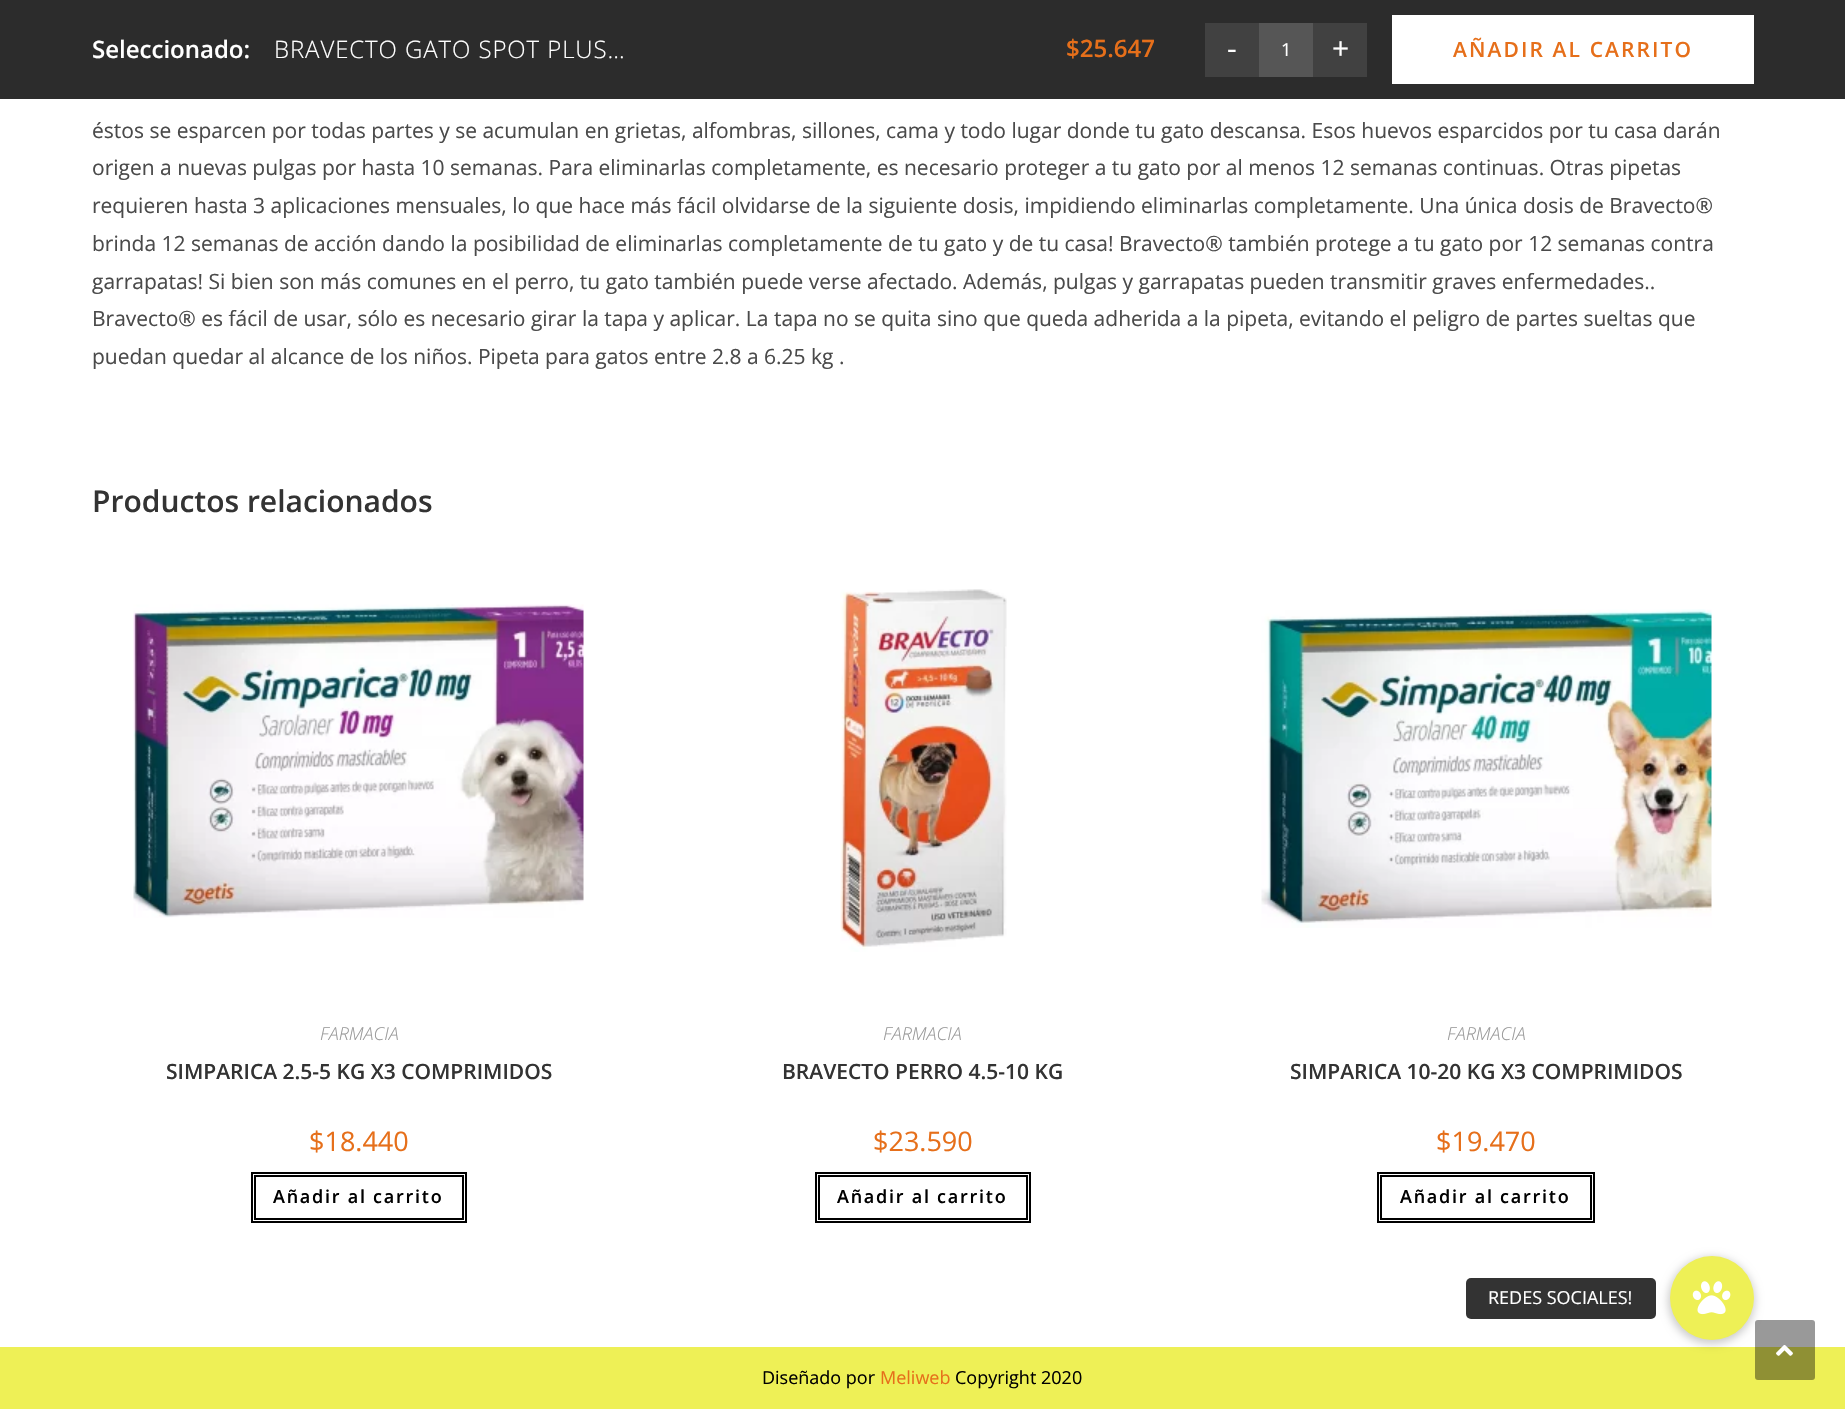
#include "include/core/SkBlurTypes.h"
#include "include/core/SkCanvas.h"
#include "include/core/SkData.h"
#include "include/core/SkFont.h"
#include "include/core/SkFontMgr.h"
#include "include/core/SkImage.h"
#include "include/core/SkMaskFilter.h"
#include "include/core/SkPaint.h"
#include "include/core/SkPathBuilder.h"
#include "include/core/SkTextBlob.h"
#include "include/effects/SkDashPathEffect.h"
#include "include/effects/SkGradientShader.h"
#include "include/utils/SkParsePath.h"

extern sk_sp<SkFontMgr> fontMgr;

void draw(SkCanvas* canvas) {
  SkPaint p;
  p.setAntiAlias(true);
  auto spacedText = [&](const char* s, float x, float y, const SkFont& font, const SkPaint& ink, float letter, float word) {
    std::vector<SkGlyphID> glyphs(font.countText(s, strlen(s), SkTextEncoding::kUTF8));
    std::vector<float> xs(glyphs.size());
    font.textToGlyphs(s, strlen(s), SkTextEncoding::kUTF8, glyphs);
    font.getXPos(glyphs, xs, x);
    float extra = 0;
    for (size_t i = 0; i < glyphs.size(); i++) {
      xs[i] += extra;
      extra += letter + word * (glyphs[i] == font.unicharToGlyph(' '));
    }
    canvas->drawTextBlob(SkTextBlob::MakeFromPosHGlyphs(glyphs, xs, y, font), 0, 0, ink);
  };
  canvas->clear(SK_ColorWHITE);
  p.setColor(SkColorSetRGB(44, 44, 44));
  canvas->drawRect(SkRect::MakeLTRB(0, 0, 1845, 99), p);
  p.setColor(SkColorSetRGB(65, 65, 65));
  canvas->drawRect(SkRect::MakeLTRB(1205, 23, 1259, 77), p);
  p.setColor(SkColorSetRGB(86, 86, 86));
  canvas->drawRect(SkRect::MakeLTRB(1259, 23, 1313, 77), p);
  p.setColor(SkColorSetRGB(65, 65, 65));
  canvas->drawRect(SkRect::MakeLTRB(1313, 23, 1367, 77), p);
  p.setColor(SK_ColorWHITE);
  canvas->drawRect(SkRect::MakeLTRB(1392, 15, 1754, 84), p);
  canvas->drawImageRect(SkImages::DeferredFromEncodedData(SkData::MakeFromFileName("images/1.png")), SkRect::MakeLTRB(133, 604, 584, 918), SkSamplingOptions());
  p.setStyle(SkPaint::kStroke_Style);
  p.setStrokeWidth(2);
  p.setColor(SK_ColorBLACK);
  canvas->drawRect(SkRect::MakeLTRB(252, 1173, 466, 1222), p);
  canvas->drawRect(SkRect::MakeLTRB(255, 1176, 463, 1219), p);
  canvas->drawImageRect(SkImages::DeferredFromEncodedData(SkData::MakeFromFileName("images/2.png")), SkRect::MakeLTRB(840, 589, 1007, 952), SkSamplingOptions());
  canvas->drawRect(SkRect::MakeLTRB(816, 1173, 1030, 1222), p);
  canvas->drawRect(SkRect::MakeLTRB(819, 1176, 1027, 1219), p);
  canvas->drawImageRect(SkImages::DeferredFromEncodedData(SkData::MakeFromFileName("images/3.png")), SkRect::MakeLTRB(1261, 609, 1712, 928), SkSamplingOptions());
  canvas->drawRect(SkRect::MakeLTRB(1378, 1173, 1594, 1222), p);
  canvas->drawRect(SkRect::MakeLTRB(1381, 1176, 1591, 1219), p);
  p.setStyle(SkPaint::kFill_Style);
  p.setColor(SkColorSetRGB(238, 240, 86));
  canvas->drawRect(SkRect::MakeLTRB(0, 1347, 1845, 1409), p);
  p.setColor(SkColorSetARGB(102, 0, 0, 0));
  canvas->drawRoundRect(SkRect::MakeLTRB(1755, 1320, 1815, 1380), 3, 3, p);
  p.setColor(SkColorSetARGB(51, 0, 0, 0));
  p.setMaskFilter(SkMaskFilter::MakeBlur(kNormal_SkBlurStyle, 4.5f));
  canvas->drawRoundRect(SkRect::MakeLTRB(1668, 1257, 1755, 1344), 43.5f, 43.5f, p);
  p.setMaskFilter(nullptr);
  p.setColor(SkColorSetRGB(238, 240, 86));
  canvas->drawCircle(1712, 1298, 42, p);
  p.setColor(SkColorSetRGB(51, 51, 51));
  canvas->drawRoundRect(SkRect::MakeLTRB(1466, 1278, 1656, 1319), 5, 5, p);
  canvas->drawImageRect(SkImages::DeferredFromEncodedData(SkData::MakeFromFileName("images/4.png")), SkRect::MakeLTRB(1692, 1281, 1731, 1315), SkSamplingOptions());
  canvas->drawImageRect(SkImages::DeferredFromEncodedData(SkData::MakeFromFileName("images/5.png")), SkRect::MakeLTRB(1776, 1345, 1793, 1356), SkSamplingOptions());
  SkFont font1(fontMgr->matchFamilyStyle("Open Sans", SkFontStyle(600, SkFontStyle::kNormal_Width, SkFontStyle::kUpright_Slant)), 24);
  font1.setSubpixel(true);
  p.setColor(SK_ColorWHITE);
  canvas->drawString("Seleccionado:", 92, 58, font1, p);
  SkFont font2(fontMgr->matchFamilyStyle("Open Sans", SkFontStyle(300, SkFontStyle::kNormal_Width, SkFontStyle::kUpright_Slant)), 24);
  font2.setSubpixel(true);
  spacedText("BRAVECTO GATO SPOT PLUS…", 274, 58, font2, p, 0.9f, 0);
  p.setColor(SkColorSetRGB(230, 111, 26));
  canvas->drawString("$25.647", 1066, 57, font1, p);
  SkFont font3(fontMgr->matchFamilyStyle("Open Sans", SkFontStyle::Normal()), 30);
  font3.setSubpixel(true);
  p.setColor(SK_ColorWHITE);
  canvas->drawString("-", 1227, 59, font3, p);
  SkFont font4(fontMgr->matchFamilyStyle("Open Sans", SkFontStyle::Normal()), 18);
  font4.setSubpixel(true);
  canvas->drawString("1", 1281, 56, font4, p);
  canvas->drawString("+", 1332, 59, font3, p);
  SkFont font5(fontMgr->matchFamilyStyle("Open Sans", SkFontStyle(600, SkFontStyle::kNormal_Width, SkFontStyle::kUpright_Slant)), 21);
  font5.setSubpixel(true);
  p.setColor(SkColorSetRGB(230, 111, 26));
  spacedText("AÑADIR AL CARRITO", 1453, 57, font5, p, 2.1f, 0);
  SkFont font6(fontMgr->matchFamilyStyle("Open Sans", SkFontStyle::Normal()), 21);
  font6.setSubpixel(true);
  p.setColor(SkColorSetRGB(74, 74, 74));
  canvas->drawString("éstos se esparcen por todas partes y se acumulan en grietas, alfombras, sillones, cama y todo lugar donde tu gato descansa. Esos huevos esparcidos por tu casa darán", 92, 138, font6, p);
  canvas->drawString("origen a nuevas pulgas por hasta 10 semanas. Para eliminarlas completamente, es necesario proteger a tu gato por al menos 12 semanas continuas. Otras pipetas", 92, 175, font6, p);
  canvas->drawString("requieren hasta 3 aplicaciones mensuales, lo que hace más fácil olvidarse de la siguiente dosis, impidiendo eliminarlas completamente. Una única dosis de Bravecto®", 92, 213, font6, p);
  canvas->drawString("brinda 12 semanas de acción dando la posibilidad de eliminarlas completamente de tu gato y de tu casa! Bravecto® también protege a tu gato por 12 semanas contra", 92, 251, font6, p);
  canvas->drawString("garrapatas! Si bien son más comunes en el perro, tu gato también puede verse afectado. Además, pulgas y garrapatas pueden transmitir graves enfermedades..", 92, 289, font6, p);
  canvas->drawString("Bravecto® es fácil de usar, sólo es necesario girar la tapa y aplicar. La tapa no se quita sino que queda adherida a la pipeta, evitando el peligro de partes sueltas que", 92, 326, font6, p);
  canvas->drawString("puedan quedar al alcance de los niños. Pipeta para gatos entre 2.8 a 6.25 kg .", 92, 364, font6, p);
  SkFont font7(fontMgr->matchFamilyStyle("Open Sans", SkFontStyle(600, SkFontStyle::kNormal_Width, SkFontStyle::kUpright_Slant)), 30);
  font7.setSubpixel(true);
  p.setColor(SkColorSetRGB(51, 51, 51));
  canvas->drawString("Productos relacionados", 92, 512, font7, p);
  SkFont font8(fontMgr->matchFamilyStyle("Open Sans", SkFontStyle(300, SkFontStyle::kNormal_Width, SkFontStyle::kItalic_Slant)), 18);
  font8.setSubpixel(true);
  p.setColor(SkColorSetRGB(153, 153, 153));
  canvas->drawString("FARMACIA", 320, 1040, font8, p);
  p.setColor(SkColorSetRGB(51, 51, 51));
  canvas->drawString("SIMPARICA 2.5-5 KG X3 COMPRIMIDOS", 166, 1079, font5, p);
  SkFont font9(fontMgr->matchFamilyStyle("Open Sans", SkFontStyle::Normal()), 27);
  font9.setSubpixel(true);
  p.setColor(SkColorSetRGB(230, 111, 26));
  canvas->drawString("$18.440", 309, 1151, font9, p);
  SkFont font10(fontMgr->matchFamilyStyle("Open Sans", SkFontStyle(600, SkFontStyle::kNormal_Width, SkFontStyle::kUpright_Slant)), 18);
  font10.setSubpixel(true);
  p.setColor(SK_ColorBLACK);
  spacedText("Añadir al carrito", 273, 1203, font10, p, 1.75f, 0);
  p.setColor(SkColorSetRGB(153, 153, 153));
  canvas->drawString("FARMACIA", 883, 1040, font8, p);
  p.setColor(SkColorSetRGB(51, 51, 51));
  canvas->drawString("BRAVECTO PERRO 4.5-10 KG", 782, 1079, font5, p);
  p.setColor(SkColorSetRGB(230, 111, 26));
  canvas->drawString("$23.590", 873, 1151, font9, p);
  p.setColor(SK_ColorBLACK);
  spacedText("Añadir al carrito", 837, 1203, font10, p, 1.75f, 0);
  p.setColor(SkColorSetRGB(153, 153, 153));
  canvas->drawString("FARMACIA", 1447, 1040, font8, p);
  p.setColor(SkColorSetRGB(51, 51, 51));
  canvas->drawString("SIMPARICA 10-20 KG X3 COMPRIMIDOS", 1290, 1079, font5, p);
  p.setColor(SkColorSetRGB(230, 111, 26));
  canvas->drawString("$19.470", 1436, 1151, font9, p);
  p.setColor(SK_ColorBLACK);
  spacedText("Añadir al carrito", 1400, 1203, font10, p, 1.75f, 0);
  canvas->drawString("Diseñado por", 762, 1384, font4, p);
  p.setColor(SkColorSetRGB(230, 111, 26));
  canvas->drawString("Meliweb", 880, 1384, font4, p);
  p.setColor(SK_ColorBLACK);
  canvas->drawString("Copyright 2020", 955, 1384, font4, p);
  p.setColor(SK_ColorWHITE);
  canvas->drawString("REDES SOCIALES!", 1488, 1304, font4, p);
}
